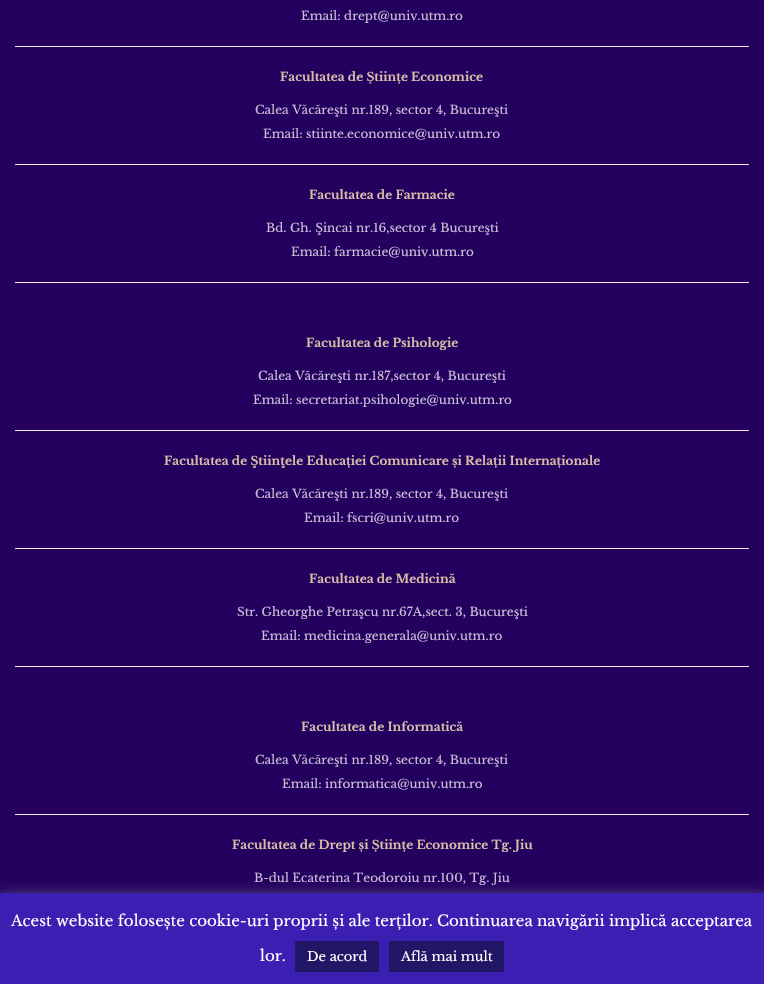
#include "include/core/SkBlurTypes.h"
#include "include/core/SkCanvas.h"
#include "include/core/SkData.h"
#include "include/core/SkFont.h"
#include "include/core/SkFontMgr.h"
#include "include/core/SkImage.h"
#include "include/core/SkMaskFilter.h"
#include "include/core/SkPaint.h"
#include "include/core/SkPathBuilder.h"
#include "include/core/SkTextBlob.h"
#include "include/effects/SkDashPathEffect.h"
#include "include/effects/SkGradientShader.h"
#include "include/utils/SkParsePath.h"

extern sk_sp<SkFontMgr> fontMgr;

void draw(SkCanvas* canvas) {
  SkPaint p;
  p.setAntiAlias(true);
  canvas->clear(SkColorSetRGB(36, 1, 95));
  p.setColor(SkColorSetRGB(238, 238, 238));
  canvas->drawRect(SkRect::MakeLTRB(15, 46, 749, 47), p);
  canvas->drawRect(SkRect::MakeLTRB(15, 164, 749, 165), p);
  canvas->drawRect(SkRect::MakeLTRB(15, 282, 749, 283), p);
  canvas->drawRect(SkRect::MakeLTRB(15, 430, 749, 431), p);
  canvas->drawRect(SkRect::MakeLTRB(15, 548, 749, 549), p);
  canvas->drawRect(SkRect::MakeLTRB(15, 666, 749, 667), p);
  canvas->drawRect(SkRect::MakeLTRB(15, 814, 749, 815), p);
  p.setColor(SkColorSetARGB(77, 172, 171, 171));
  p.setMaskFilter(SkMaskFilter::MakeBlur(kNormal_SkBlurStyle, 5));
  canvas->drawRect(SkRect::MakeLTRB(0, 892, 764, 983), p);
  p.setMaskFilter(nullptr);
  p.setColor(SkColorSetRGB(59, 31, 179));
  canvas->drawRect(SkRect::MakeLTRB(0, 893, 764, 984), p);
  p.setColor(SkColorSetRGB(34, 22, 102));
  canvas->drawRect(SkRect::MakeLTRB(295, 941, 379, 972), p);
  canvas->drawRect(SkRect::MakeLTRB(389, 941, 504, 972), p);
  SkFont font1(fontMgr->matchFamilyStyle("Libre Baskerville", SkFontStyle::Normal()), 12);
  font1.setSubpixel(true);
  p.setColor(SkColorSetRGB(200, 192, 215));
  canvas->drawString("Email: drept@univ.utm.ro", 301, 20, font1, p);
  SkFont font2(fontMgr->matchFamilyStyle("Libre Baskerville", SkFontStyle::Bold()), 12);
  font2.setSubpixel(true);
  p.setColor(SkColorSetRGB(216, 192, 168));
  canvas->drawString("Facultatea de Științe Economice", 280, 81, font2, p);
  p.setColor(SkColorSetRGB(200, 192, 215));
  canvas->drawString("Calea Văcăreşti nr.189, sector 4, Bucureşti", 255, 114, font1, p);
  canvas->drawString("Email: stiinte.economice@univ.utm.ro", 263, 138, font1, p);
  p.setColor(SkColorSetRGB(216, 192, 168));
  canvas->drawString("Facultatea de Farmacie", 309, 199, font2, p);
  p.setColor(SkColorSetRGB(200, 192, 215));
  canvas->drawString("Bd. Gh. Şincai nr.16,sector 4 Bucureşti", 266, 232, font1, p);
  canvas->drawString("Email: farmacie@univ.utm.ro", 291, 256, font1, p);
  p.setColor(SkColorSetRGB(216, 192, 168));
  canvas->drawString("Facultatea de Psihologie", 306, 347, font2, p);
  p.setColor(SkColorSetRGB(200, 192, 215));
  canvas->drawString("Calea Văcăreşti nr.187,sector 4, Bucureşti", 258, 380, font1, p);
  canvas->drawString("Email: secretariat.psihologie@univ.utm.ro", 253, 404, font1, p);
  p.setColor(SkColorSetRGB(216, 192, 168));
  canvas->drawString("Facultatea de Ştiinţele Educației Comunicare și Relații Internaționale", 164, 465, font2, p);
  p.setColor(SkColorSetRGB(200, 192, 215));
  canvas->drawString("Calea Văcăreşti nr.189, sector 4, Bucureşti", 255, 498, font1, p);
  canvas->drawString("Email: fscri@univ.utm.ro", 304, 522, font1, p);
  p.setColor(SkColorSetRGB(216, 192, 168));
  canvas->drawString("Facultatea de Medicină", 309, 583, font2, p);
  p.setColor(SkColorSetRGB(200, 192, 215));
  canvas->drawString("Str. Gheorghe Petraşcu nr.67A,sect. 3, Bucureşti", 237, 616, font1, p);
  canvas->drawString("Email: medicina.generala@univ.utm.ro", 261, 640, font1, p);
  p.setColor(SkColorSetRGB(216, 192, 168));
  canvas->drawString("Facultatea de Informatică", 301, 731, font2, p);
  p.setColor(SkColorSetRGB(200, 192, 215));
  canvas->drawString("Calea Văcăreşti nr.189, sector 4, Bucureşti", 255, 764, font1, p);
  canvas->drawString("Email: informatica@univ.utm.ro", 282, 788, font1, p);
  p.setColor(SkColorSetRGB(216, 192, 168));
  canvas->drawString("Facultatea de Drept și Științe Economice Tg. Jiu", 232, 849, font2, p);
  p.setColor(SkColorSetRGB(200, 192, 215));
  canvas->drawString("B-dul Ecaterina Teodoroiu nr.100, Tg. Jiu", 254, 882, font1, p);
  SkFont font3(fontMgr->matchFamilyStyle("Libre Baskerville", SkFontStyle::Normal()), 15);
  font3.setSubpixel(true);
  p.setColor(SK_ColorWHITE);
  canvas->drawString("Acest website folosește cookie-uri proprii și ale terților. Continuarea navigării implică acceptarea", 11, 926, font3, p);
  canvas->drawString("lor.", 260, 961, font3, p);
  SkFont font4(fontMgr->matchFamilyStyle("Libre Baskerville", SkFontStyle::Normal()), 13);
  font4.setSubpixel(true);
  canvas->drawString("De acord", 307, 961, font4, p);
  canvas->drawString("Află mai mult", 401, 961, font4, p);
}
